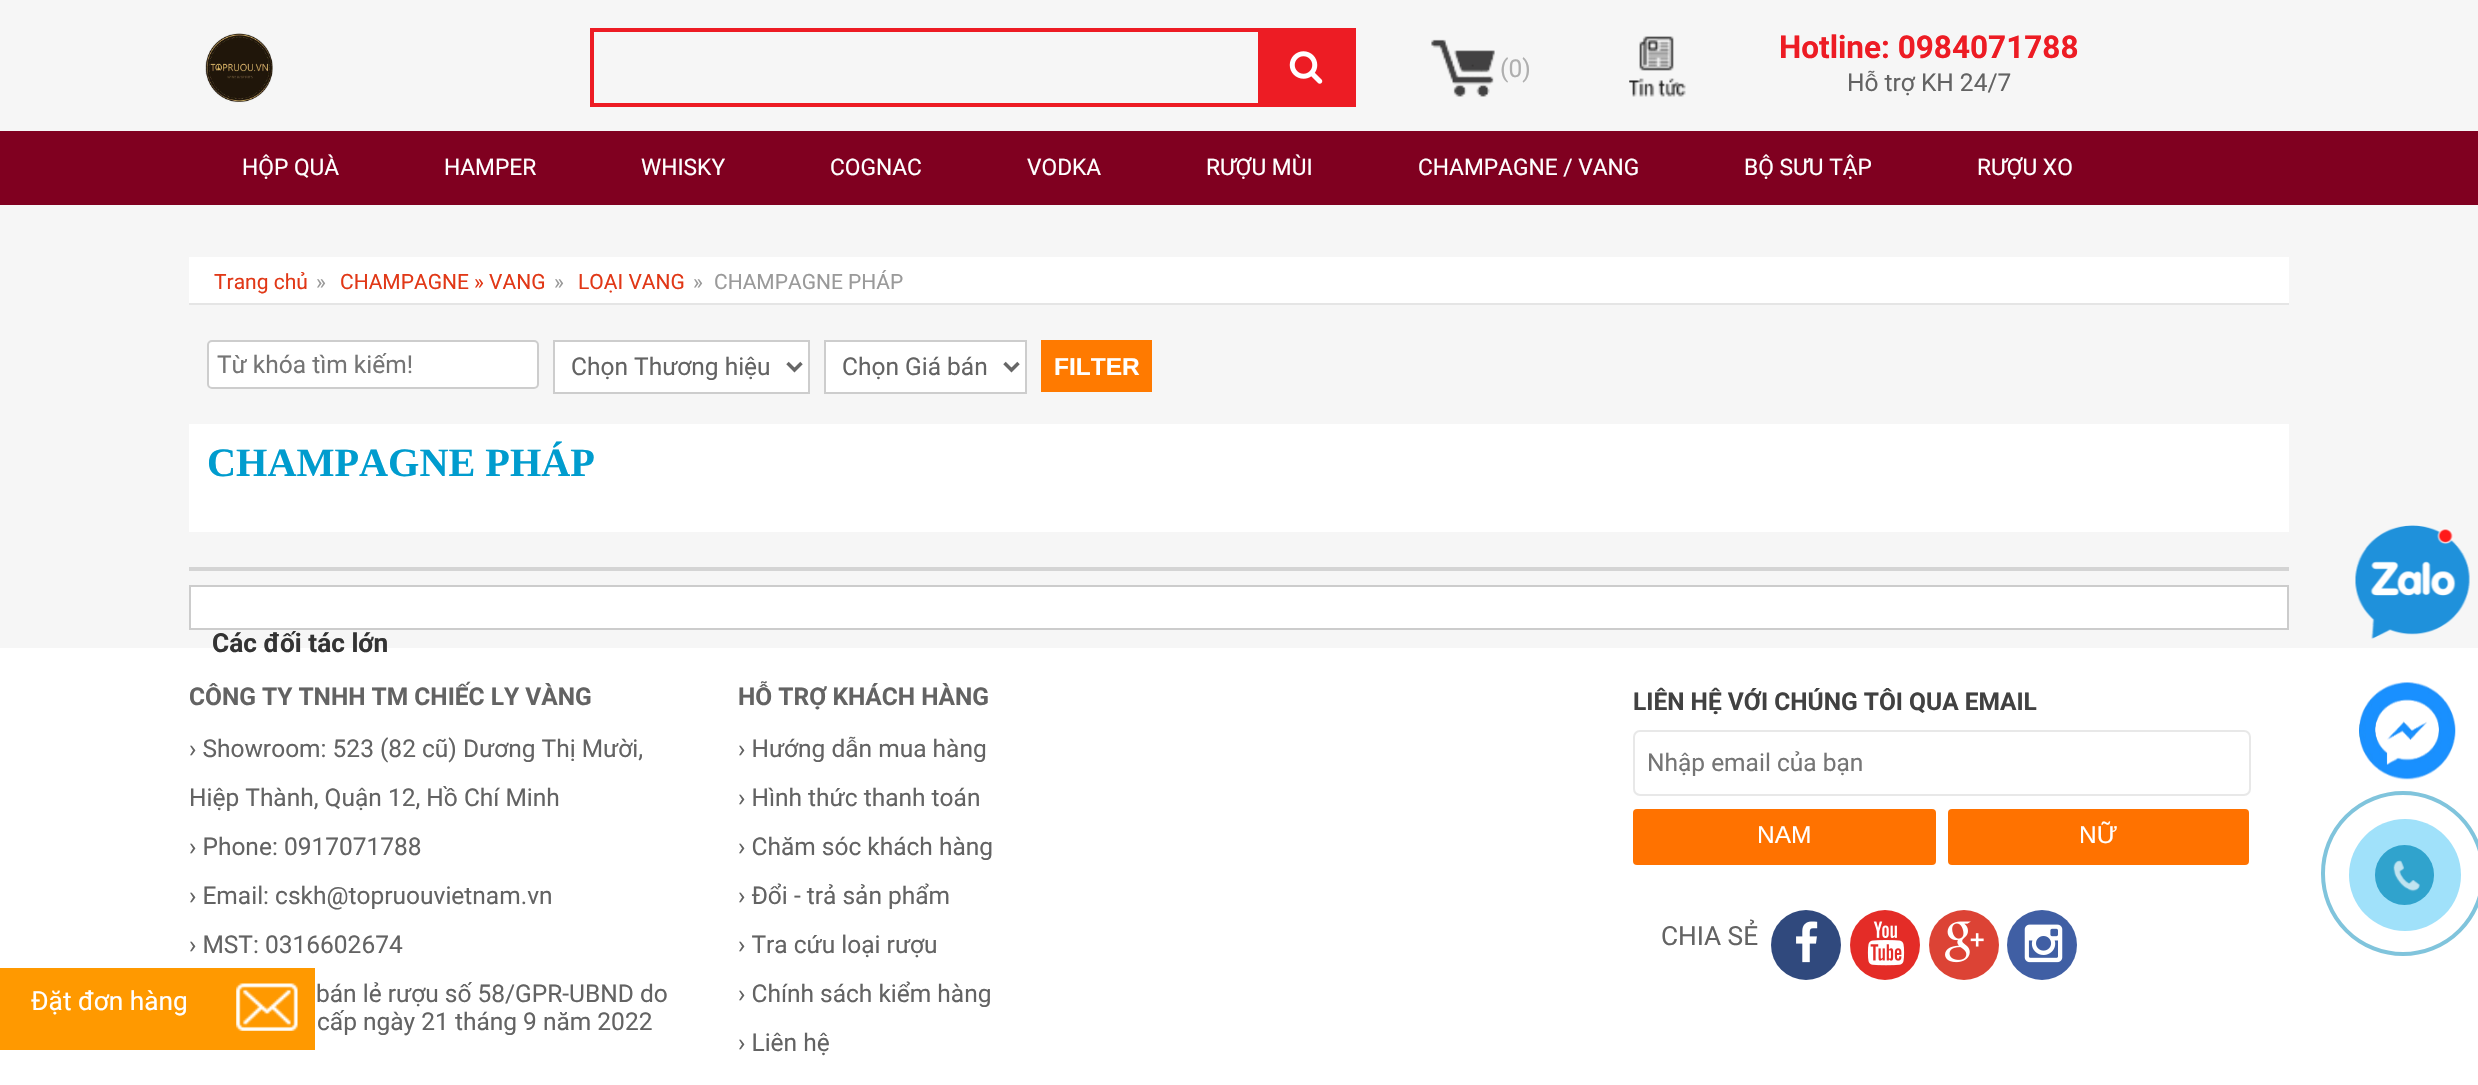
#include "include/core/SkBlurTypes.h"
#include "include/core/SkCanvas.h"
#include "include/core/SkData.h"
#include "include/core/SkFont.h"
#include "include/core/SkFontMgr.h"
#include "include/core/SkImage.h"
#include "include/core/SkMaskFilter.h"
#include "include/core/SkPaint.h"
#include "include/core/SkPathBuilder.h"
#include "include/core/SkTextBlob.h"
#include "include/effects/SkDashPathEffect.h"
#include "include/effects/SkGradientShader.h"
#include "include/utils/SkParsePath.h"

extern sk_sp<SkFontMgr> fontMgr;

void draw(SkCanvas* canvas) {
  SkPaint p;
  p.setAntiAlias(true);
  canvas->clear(SkColorSetRGB(246, 246, 246));
  canvas->drawImageRect(SkImages::DeferredFromEncodedData(SkData::MakeFromFileName("images/1.png")), SkRect::MakeLTRB(205, 33, 273, 103), SkSamplingOptions());
  p.setStyle(SkPaint::kStroke_Style);
  p.setStrokeWidth(4);
  p.setColor(SkColorSetRGB(237, 28, 36));
  canvas->drawRect(SkRect::MakeLTRB(592, 30, 1354, 105), p);
  p.setStyle(SkPaint::kFill_Style);
  canvas->drawRect(SkRect::MakeLTRB(1258, 32, 1352, 103), p);
  canvas->drawImageRect(SkImages::DeferredFromEncodedData(SkData::MakeFromFileName("images/2.png")), SkRect::MakeLTRB(1289, 51, 1323, 84), SkSamplingOptions());
  canvas->drawImageRect(SkImages::DeferredFromEncodedData(SkData::MakeFromFileName("images/3.png")), SkRect::MakeLTRB(1431, 39, 1495, 97), SkSamplingOptions());
  canvas->drawImageRect(SkImages::DeferredFromEncodedData(SkData::MakeFromFileName("images/4.png")), SkRect::MakeLTRB(1629, 36, 1686, 97), SkSamplingOptions());
  p.setColor(SkColorSetRGB(128, 0, 32));
  canvas->drawRect(SkRect::MakeLTRB(0, 131, 2478, 205), p);
  p.setColor(SK_ColorWHITE);
  canvas->drawRect(SkRect::MakeLTRB(189, 257, 2289, 303), p);
  p.setColor(SkColorSetRGB(229, 229, 229));
  canvas->drawRect(SkRect::MakeLTRB(189, 303, 2289, 305), p);
  p.setColor(SK_ColorWHITE);
  canvas->drawRoundRect(SkRect::MakeLTRB(208, 341, 538, 388), 4, 4, p);
  p.setStyle(SkPaint::kStroke_Style);
  p.setStrokeWidth(2);
  p.setColor(SkColorSetRGB(205, 205, 205));
  canvas->drawRoundRect(SkRect::MakeLTRB(208, 341, 538, 388), 4, 4, p);
  p.setStyle(SkPaint::kFill_Style);
  p.setColor(SK_ColorWHITE);
  canvas->drawRect(SkRect::MakeLTRB(554, 341, 809, 393), p);
  p.setStyle(SkPaint::kStroke_Style);
  p.setColor(SkColorSetRGB(205, 205, 205));
  canvas->drawRect(SkRect::MakeLTRB(554, 341, 809, 393), p);
  p.setStrokeWidth(3.5f);
  p.setColor(SkColorSetRGB(103, 103, 103));
  canvas->drawPath(SkPathBuilder().moveTo(787.5f, 363).lineTo(794.5f, 370).lineTo(801.5f, 363).detach(), p);
  p.setStyle(SkPaint::kFill_Style);
  p.setColor(SK_ColorWHITE);
  canvas->drawRect(SkRect::MakeLTRB(825, 341, 1026, 393), p);
  p.setStyle(SkPaint::kStroke_Style);
  p.setStrokeWidth(2);
  p.setColor(SkColorSetRGB(205, 205, 205));
  canvas->drawRect(SkRect::MakeLTRB(825, 341, 1026, 393), p);
  p.setStrokeWidth(3.5f);
  p.setColor(SkColorSetRGB(103, 103, 103));
  canvas->drawPath(SkPathBuilder().moveTo(1004.5f, 363).lineTo(1011.5f, 370).lineTo(1018.5f, 363).detach(), p);
  p.setStyle(SkPaint::kFill_Style);
  p.setColor(SkColorSetRGB(255, 122, 0));
  canvas->drawRect(SkRect::MakeLTRB(1041, 340, 1152, 392), p);
  p.setColor(SK_ColorWHITE);
  canvas->drawRect(SkRect::MakeLTRB(189, 424, 2289, 532), p);
  p.setColor(SkColorSetRGB(212, 212, 212));
  canvas->drawRect(SkRect::MakeLTRB(189, 567, 2289, 571), p);
  p.setColor(SK_ColorWHITE);
  canvas->drawRect(SkRect::MakeLTRB(190, 586, 2288, 629), p);
  p.setStyle(SkPaint::kStroke_Style);
  p.setStrokeWidth(2);
  p.setColor(SkColorSetRGB(204, 204, 204));
  canvas->drawRect(SkRect::MakeLTRB(190, 586, 2288, 629), p);
  p.setStyle(SkPaint::kFill_Style);
  p.setColor(SK_ColorWHITE);
  canvas->drawRect(SkRect::MakeLTRB(0, 648, 2478, 1085), p);
  p.setStyle(SkPaint::kStroke_Style);
  p.setColor(SkColorSetRGB(232, 232, 232));
  canvas->drawRoundRect(SkRect::MakeLTRB(1634, 731, 2250, 795), 6, 6, p);
  p.setStyle(SkPaint::kFill_Style);
  p.setColor(SkColorSetRGB(255, 114, 0));
  canvas->drawRoundRect(SkRect::MakeLTRB(1633, 809, 1936, 865), 4, 4, p);
  canvas->drawRoundRect(SkRect::MakeLTRB(1948, 809, 2249, 865), 4, 4, p);
  p.setColor(SkColorSetRGB(48, 73, 125));
  canvas->drawCircle(1806, 945, 35, p);
  canvas->drawImageRect(SkImages::DeferredFromEncodedData(SkData::MakeFromFileName("images/5.png")), SkRect::MakeLTRB(1796, 921, 1818, 963), SkSamplingOptions());
  p.setColor(SkColorSetRGB(228, 44, 39));
  canvas->drawCircle(1885, 945, 35, p);
  canvas->drawImageRect(SkImages::DeferredFromEncodedData(SkData::MakeFromFileName("images/6.png")), SkRect::MakeLTRB(1867, 921, 1905, 966), SkSamplingOptions());
  p.setColor(SkColorSetRGB(220, 67, 53));
  canvas->drawCircle(1964, 945, 35, p);
  canvas->drawImageRect(SkImages::DeferredFromEncodedData(SkData::MakeFromFileName("images/7.png")), SkRect::MakeLTRB(1945, 921, 1984, 963), SkSamplingOptions());
  p.setColor(SkColorSetRGB(64, 95, 164));
  canvas->drawCircle(2042, 945, 35, p);
  canvas->drawImageRect(SkImages::DeferredFromEncodedData(SkData::MakeFromFileName("images/8.png")), SkRect::MakeLTRB(2024, 924, 2063, 963), SkSamplingOptions());
  canvas->drawImageRect(SkImages::DeferredFromEncodedData(SkData::MakeFromFileName("images/9.png")), SkRect::MakeLTRB(2355, 525, 2470, 639), SkSamplingOptions());
  canvas->drawImageRect(SkImages::DeferredFromEncodedData(SkData::MakeFromFileName("images/10.png")), SkRect::MakeLTRB(2359, 682, 2456, 780), SkSamplingOptions());
  p.setStyle(SkPaint::kStroke_Style);
  p.setStrokeWidth(4);
  p.setColor(SkColorSetRGB(128, 196, 220));
  canvas->drawRoundRect(SkRect::MakeLTRB(2323, 793, 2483, 954), 80, 80, p);
  p.setStyle(SkPaint::kFill_Style);
  p.setColor(SkColorSetRGB(160, 225, 250));
  canvas->drawCircle(2405, 875, 56, p);
  p.setColor(SkColorSetRGB(48, 163, 205));
  canvas->drawRoundRect(SkRect::MakeLTRB(2375, 845, 2434, 905), 29.5f, 29.5f, p);
  canvas->drawImageRect(SkImages::DeferredFromEncodedData(SkData::MakeFromFileName("images/11.png")), SkRect::MakeLTRB(2393, 860, 2420, 892), SkSamplingOptions());
  p.setColor(SkColorSetRGB(255, 153, 0));
  canvas->drawRect(SkRect::MakeLTRB(0, 968, 315, 1050), p);
  canvas->drawImageRect(SkImages::DeferredFromEncodedData(SkData::MakeFromFileName("images/12.png")), SkRect::MakeLTRB(236, 983, 298, 1031), SkSamplingOptions());
  SkFont font1(fontMgr->matchFamilyStyle("Roboto", SkFontStyle::Normal()), 24.5f);
  font1.setSubpixel(true);
  p.setColor(SkColorSetRGB(175, 175, 175));
  canvas->drawString("(0)", 1500, 77, font1, p);
  SkFont font2(fontMgr->matchFamilyStyle("Roboto", SkFontStyle::Bold()), 31.5f);
  font2.setSubpixel(true);
  p.setColor(SkColorSetRGB(237, 28, 36));
  canvas->drawString("Hotline: 0984071788", 1779, 58, font2, p);
  p.setColor(SkColorSetRGB(99, 99, 99));
  canvas->drawString("Hỗ trợ KH 24/7", 1847, 91, font1, p);
  SkFont font3(fontMgr->matchFamilyStyle("Roboto", SkFontStyle::Normal()), 22.75f);
  font3.setSubpixel(true);
  p.setColor(SK_ColorWHITE);
  canvas->drawString("HỘP QUÀ", 242, 175, font3, p);
  canvas->drawString("HAMPER", 444, 175, font3, p);
  canvas->drawString("WHISKY", 641, 175, font3, p);
  canvas->drawString("COGNAC", 830, 175, font3, p);
  canvas->drawString("VODKA", 1027, 175, font3, p);
  canvas->drawString("RƯỢU MÙI", 1206, 175, font3, p);
  canvas->drawString("CHAMPAGNE / VANG", 1418, 175, font3, p);
  canvas->drawString("BỘ SƯU TẬP", 1744, 175, font3, p);
  canvas->drawString("RƯỢU XO", 1977, 175, font3, p);
  SkFont font4(fontMgr->matchFamilyStyle("Roboto", SkFontStyle::Normal()), 21);
  font4.setSubpixel(true);
  p.setColor(SkColorSetRGB(225, 56, 23));
  canvas->drawString("Trang chủ", 214, 289, font4, p);
  p.setColor(SkColorSetRGB(154, 154, 154));
  canvas->drawString("»", 316, 289, font4, p);
  p.setColor(SkColorSetRGB(225, 56, 23));
  canvas->drawString("CHAMPAGNE » VANG", 340, 289, font4, p);
  p.setColor(SkColorSetRGB(154, 154, 154));
  canvas->drawString("»", 554, 289, font4, p);
  p.setColor(SkColorSetRGB(225, 56, 23));
  canvas->drawString("LOẠI VANG", 578, 289, font4, p);
  p.setColor(SkColorSetRGB(154, 154, 154));
  canvas->drawString("»", 693, 289, font4, p);
  canvas->drawString("CHAMPAGNE PHÁP", 714, 289, font4, p);
  p.setColor(SkColorSetRGB(117, 117, 117));
  canvas->drawString("Từ khóa tìm kiếm!", 217, 373, font1, p);
  p.setColor(SkColorSetRGB(99, 99, 99));
  canvas->drawString("Chọn Thương hiệu", 571, 375, font1, p);
  canvas->drawString("Chọn Giá bán", 842, 375, font1, p);
  SkFont font5(fontMgr->matchFamilyStyle("Liberation Sans", SkFontStyle::Bold()), 24.5f);
  font5.setSubpixel(true);
  p.setColor(SK_ColorWHITE);
  canvas->drawString("FILTER", 1054, 375, font5, p);
  SkFont font6(fontMgr->matchFamilyStyle("Liberation Serif", SkFontStyle::Bold()), 40.25f);
  font6.setSubpixel(true);
  p.setColor(SkColorSetRGB(0, 156, 206));
  canvas->drawString("CHAMPAGNE PHÁP", 207, 476, font6, p);
  SkFont font7(fontMgr->matchFamilyStyle("Roboto", SkFontStyle::Bold()), 26.25f);
  font7.setSubpixel(true);
  p.setColor(SkColorSetRGB(51, 51, 51));
  canvas->drawString("Các đối tác lớn", 212, 652, font7, p);
  SkFont font8(fontMgr->matchFamilyStyle("Roboto", SkFontStyle::Bold()), 24.5f);
  font8.setSubpixel(true);
  p.setColor(SkColorSetRGB(99, 99, 99));
  canvas->drawString("CÔNG TY TNHH TM CHIẾC LY VÀNG", 189, 705, font8, p);
  canvas->drawString("› Showroom: 523 (82 cũ) Dương Thị Mười,", 189, 757, font1, p);
  canvas->drawString("Hiệp Thành, Quận 12, Hồ Chí Minh", 189, 806, font1, p);
  canvas->drawString("› Phone: 0917071788", 189, 855, font1, p);
  canvas->drawString("› Email: cskh@topruouvietnam.vn", 189, 904, font1, p);
  canvas->drawString("› MST: 0316602674", 189, 953, font1, p);
  canvas->drawString("bán lẻ rượu số 58/GPR-UBND do", 316, 1002, font1, p);
  canvas->drawString("cấp ngày 21 tháng 9 năm 2022", 317, 1030, font1, p);
  canvas->drawString("HỖ TRỢ KHÁCH HÀNG", 738, 705, font8, p);
  canvas->drawString("› Hướng dẫn mua hàng", 738, 757, font1, p);
  canvas->drawString("› Hình thức thanh toán", 738, 806, font1, p);
  canvas->drawString("› Chăm sóc khách hàng", 738, 855, font1, p);
  canvas->drawString("› Đổi - trả sản phẩm", 738, 904, font1, p);
  canvas->drawString("› Tra cứu loại rượu", 738, 953, font1, p);
  canvas->drawString("› Chính sách kiểm hàng", 738, 1002, font1, p);
  canvas->drawString("› Liên hệ", 738, 1051, font1, p);
  p.setColor(SkColorSetRGB(65, 65, 65));
  canvas->drawString("LIÊN HỆ VỚI CHÚNG TÔI QUA EMAIL", 1633, 710, font8, p);
  p.setColor(SkColorSetRGB(117, 117, 117));
  canvas->drawString("Nhập email của bạn", 1647, 771, font1, p);
  SkFont font9(fontMgr->matchFamilyStyle("Liberation Sans", SkFontStyle::Normal()), 24.5f);
  font9.setSubpixel(true);
  p.setColor(SK_ColorWHITE);
  canvas->drawString("NAM", 1757, 843, font9, p);
  canvas->drawString("NỮ", 2079, 843, font9, p);
  SkFont font10(fontMgr->matchFamilyStyle("Roboto", SkFontStyle::Normal()), 26.25f);
  font10.setSubpixel(true);
  p.setColor(SkColorSetRGB(99, 99, 99));
  canvas->drawString("CHIA SẺ", 1661, 945, font10, p);
  p.setColor(SK_ColorWHITE);
  canvas->drawString("Đặt đơn hàng", 31, 1010, font10, p);
}
